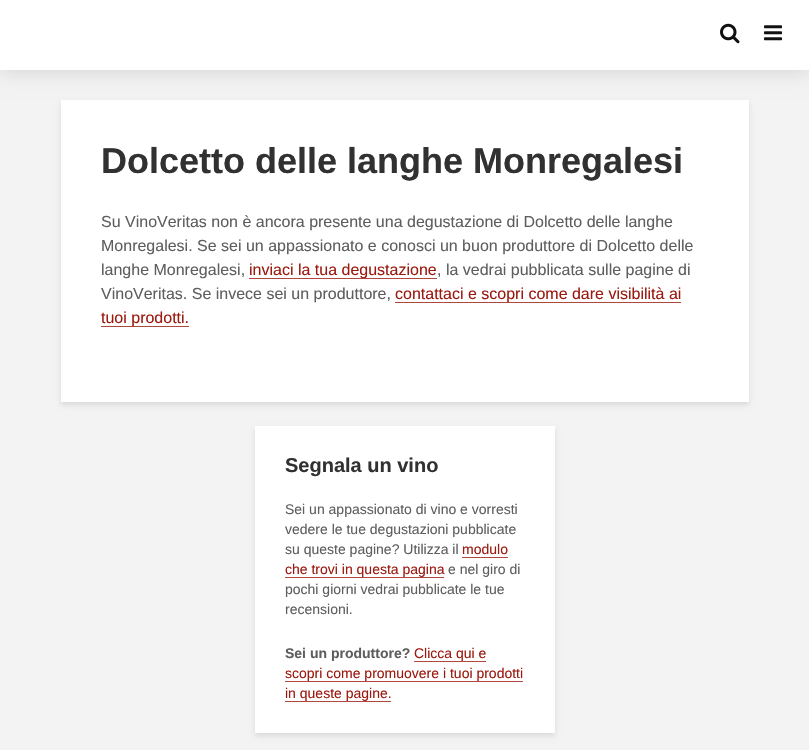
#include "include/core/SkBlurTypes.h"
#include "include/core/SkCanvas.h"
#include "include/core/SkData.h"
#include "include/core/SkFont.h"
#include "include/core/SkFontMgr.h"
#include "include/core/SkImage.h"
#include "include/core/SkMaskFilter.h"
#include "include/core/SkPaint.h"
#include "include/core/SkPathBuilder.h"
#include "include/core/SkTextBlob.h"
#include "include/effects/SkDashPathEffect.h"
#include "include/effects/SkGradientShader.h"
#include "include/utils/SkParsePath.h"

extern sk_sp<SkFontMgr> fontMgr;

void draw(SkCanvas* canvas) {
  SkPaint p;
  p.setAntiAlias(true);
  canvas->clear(SkColorSetRGB(243, 243, 243));
  p.setColor(SkColorSetARGB(26, 0, 1, 1));
  p.setMaskFilter(SkMaskFilter::MakeBlur(kNormal_SkBlurStyle, 2.5f));
  canvas->drawRect(SkRect::MakeLTRB(61, 103, 749, 405), p);
  p.setMaskFilter(nullptr);
  p.setColor(SK_ColorWHITE);
  canvas->drawRect(SkRect::MakeLTRB(61, 100, 749, 402), p);
  p.setColor(SkColorSetARGB(38, 0, 0, 0));
  p.setMaskFilter(SkMaskFilter::MakeBlur(kNormal_SkBlurStyle, 10));
  canvas->drawRect(SkRect::MakeLTRB(0, 0, 809, 70), p);
  p.setMaskFilter(nullptr);
  p.setColor(SK_ColorWHITE);
  canvas->drawRect(SkRect::MakeLTRB(0, 0, 809, 70), p);
  canvas->drawImageRect(SkImages::DeferredFromEncodedData(SkData::MakeFromFileName("images/1.png")), SkRect::MakeLTRB(720, 23, 740, 44), SkSamplingOptions());
  canvas->drawImageRect(SkImages::DeferredFromEncodedData(SkData::MakeFromFileName("images/2.png")), SkRect::MakeLTRB(764, 25, 782, 41), SkSamplingOptions());
  p.setColor(SkColorSetRGB(176, 71, 63));
  canvas->drawRect(SkRect::MakeLTRB(249, 278, 437, 279), p);
  canvas->drawRect(SkRect::MakeLTRB(395, 302, 681, 303), p);
  canvas->drawRect(SkRect::MakeLTRB(101, 326, 189, 327), p);
  p.setColor(SkColorSetARGB(26, 0, 1, 1));
  p.setMaskFilter(SkMaskFilter::MakeBlur(kNormal_SkBlurStyle, 2.5f));
  canvas->drawRect(SkRect::MakeLTRB(255, 429, 555, 736), p);
  p.setMaskFilter(nullptr);
  p.setColor(SK_ColorWHITE);
  canvas->drawRect(SkRect::MakeLTRB(255, 426, 555, 733), p);
  p.setColor(SkColorSetRGB(176, 71, 63));
  canvas->drawRect(SkRect::MakeLTRB(462, 557, 508, 558), p);
  canvas->drawRect(SkRect::MakeLTRB(285, 577, 444, 578), p);
  canvas->drawRect(SkRect::MakeLTRB(414, 661, 486, 662), p);
  canvas->drawRect(SkRect::MakeLTRB(285, 681, 523, 682), p);
  canvas->drawRect(SkRect::MakeLTRB(285, 701, 391, 702), p);
  SkFont font1(fontMgr->matchFamilyStyle("Liberation Sans", SkFontStyle::Bold()), 36);
  font1.setSubpixel(true);
  p.setColor(SkColorSetRGB(49, 49, 49));
  canvas->drawString("Dolcetto delle langhe Monregalesi", 101, 173, font1, p);
  SkFont font2(fontMgr->matchFamilyStyle("Liberation Sans", SkFontStyle::Normal()), 16);
  font2.setSubpixel(true);
  p.setColor(SkColorSetRGB(94, 94, 94));
  canvas->drawString("Su VinoVeritas non è ancora presente una degustazione di Dolcetto delle langhe", 101, 227, font2, p);
  canvas->drawString("Monregalesi. Se sei un appassionato e conosci un buon produttore di Dolcetto delle", 101, 251, font2, p);
  canvas->drawString("langhe Monregalesi,", 101, 275, font2, p);
  p.setColor(SkColorSetRGB(156, 25, 15));
  canvas->drawString("inviaci la tua degustazione", 249, 275, font2, p);
  p.setColor(SkColorSetRGB(94, 94, 94));
  canvas->drawString(", la vedrai pubblicata sulle pagine di", 437, 275, font2, p);
  canvas->drawString("VinoVeritas. Se invece sei un produttore,", 101, 299, font2, p);
  p.setColor(SkColorSetRGB(156, 25, 15));
  canvas->drawString("contattaci e scopri come dare visibilità ai", 395, 299, font2, p);
  canvas->drawString("tuoi prodotti.", 101, 323, font2, p);
  SkFont font3(fontMgr->matchFamilyStyle("Liberation Sans", SkFontStyle::Bold()), 20);
  font3.setSubpixel(true);
  p.setColor(SkColorSetRGB(49, 49, 49));
  canvas->drawString("Segnala un vino", 285, 472, font3, p);
  SkFont font4(fontMgr->matchFamilyStyle("Liberation Sans", SkFontStyle::Normal()), 14);
  font4.setSubpixel(true);
  p.setColor(SkColorSetRGB(94, 94, 94));
  canvas->drawString("Sei un appassionato di vino e vorresti", 285, 514, font4, p);
  canvas->drawString("vedere le tue degustazioni pubblicate", 285, 534, font4, p);
  canvas->drawString("su queste pagine? Utilizza il", 285, 554, font4, p);
  p.setColor(SkColorSetRGB(156, 25, 15));
  canvas->drawString("modulo", 462, 554, font4, p);
  canvas->drawString("che trovi in questa pagina", 285, 574, font4, p);
  p.setColor(SkColorSetRGB(94, 94, 94));
  canvas->drawString("e nel giro di", 448, 574, font4, p);
  canvas->drawString("pochi giorni vedrai pubblicate le tue", 285, 594, font4, p);
  canvas->drawString("recensioni.", 285, 614, font4, p);
  SkFont font5(fontMgr->matchFamilyStyle("Liberation Sans", SkFontStyle::Bold()), 14);
  font5.setSubpixel(true);
  canvas->drawString("Sei un produttore?", 285, 658, font5, p);
  p.setColor(SkColorSetRGB(156, 25, 15));
  canvas->drawString("Clicca qui e", 414, 658, font4, p);
  canvas->drawString("scopri come promuovere i tuoi prodotti", 285, 678, font4, p);
  canvas->drawString("in queste pagine.", 285, 698, font4, p);
}
